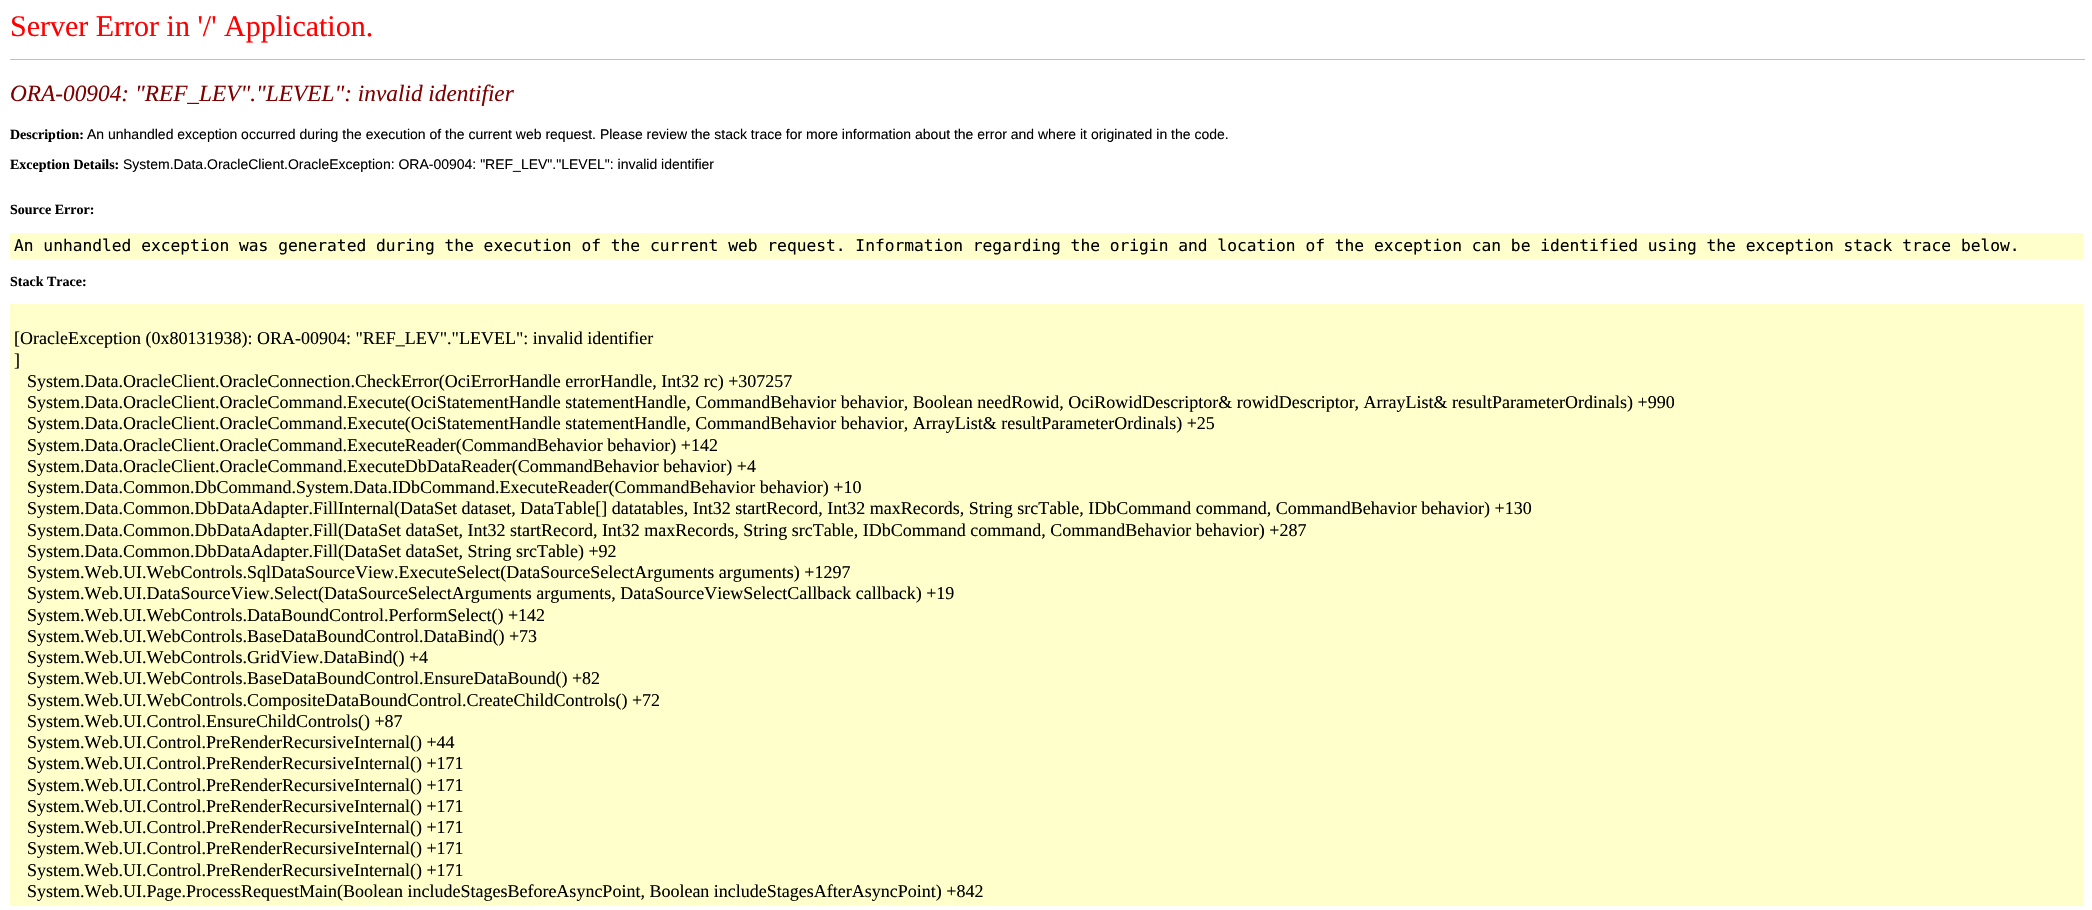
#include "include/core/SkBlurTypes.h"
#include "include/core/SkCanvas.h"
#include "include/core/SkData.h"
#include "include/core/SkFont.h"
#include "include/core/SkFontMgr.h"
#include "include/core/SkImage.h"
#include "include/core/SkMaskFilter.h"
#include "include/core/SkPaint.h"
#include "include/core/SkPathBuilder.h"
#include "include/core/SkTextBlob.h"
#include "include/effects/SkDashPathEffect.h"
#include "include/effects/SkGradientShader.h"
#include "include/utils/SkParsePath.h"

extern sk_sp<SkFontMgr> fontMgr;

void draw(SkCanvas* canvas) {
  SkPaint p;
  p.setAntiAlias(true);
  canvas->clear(SK_ColorWHITE);
  p.setColor(SkColorSetRGB(192, 192, 192));
  canvas->drawRect(SkRect::MakeLTRB(10, 59, 2085, 60), p);
  p.setColor(SkColorSetRGB(255, 255, 204));
  canvas->drawRect(SkRect::MakeLTRB(10, 233, 2083, 259), p);
  canvas->drawRect(SkRect::MakeLTRB(10, 304, 2083, 906), p);
  SkFont font1(fontMgr->matchFamilyStyle("Liberation Serif", SkFontStyle::Normal()), 30);
  font1.setSubpixel(true);
  p.setColor(SkColorSetRGB(255, 0, 0));
  canvas->drawString("Server Error in '/' Application.", 10, 36, font1, p);
  SkFont font2(fontMgr->matchFamilyStyle("Liberation Serif", SkFontStyle::Italic()), 23.3f);
  font2.setSubpixel(true);
  p.setColor(SkColorSetRGB(128, 0, 0));
  canvas->drawString("ORA-00904: \"REF_LEV\".\"LEVEL\": invalid identifier", 10, 101, font2, p);
  SkFont font3(fontMgr->matchFamilyStyle("Liberation Serif", SkFontStyle::Bold()), 14);
  font3.setSubpixel(true);
  p.setColor(SK_ColorBLACK);
  canvas->drawString("Description:", 10, 139, font3, p);
  SkFont font4(fontMgr->matchFamilyStyle("Liberation Sans", SkFontStyle::Normal()), 14);
  font4.setSubpixel(true);
  canvas->drawString("An unhandled exception occurred during the execution of the current web request. Please review the stack trace for more information about the error and where it originated in the code.", 87, 139, font4, p);
  canvas->drawString("Exception Details:", 10, 169, font3, p);
  canvas->drawString("System.Data.OracleClient.OracleException: ORA-00904: \"REF_LEV\".\"LEVEL\": invalid identifier", 123, 169, font4, p);
  canvas->drawString("Source Error:", 10, 214, font3, p);
  SkFont font5(fontMgr->matchFamilyStyle("DejaVu Sans Mono", SkFontStyle::Normal()), 16.25f);
  font5.setSubpixel(true);
  canvas->drawString("An unhandled exception was generated during the execution of the current web request. Information regarding the origin and location of the exception can be identified using the exception stack trace below.", 14, 251, font5, p);
  canvas->drawString("Stack Trace:", 10, 286, font3, p);
  SkFont font6(fontMgr->matchFamilyStyle("Liberation Serif", SkFontStyle::Normal()), 18);
  font6.setSubpixel(true);
  canvas->drawString("[OracleException (0x80131938): ORA-00904: \"REF_LEV\".\"LEVEL\": invalid identifier", 14, 344, font6, p);
  canvas->drawString("]", 14, 366, font6, p);
  canvas->drawString("System.Data.OracleClient.OracleConnection.CheckError(OciErrorHandle errorHandle, Int32 rc) +307257", 27, 387, font6, p);
  canvas->drawString("System.Data.OracleClient.OracleCommand.Execute(OciStatementHandle statementHandle, CommandBehavior behavior, Boolean needRowid, OciRowidDescriptor& rowidDescriptor, ArrayList& resultParameterOrdinals) +990", 27, 408, font6, p);
  canvas->drawString("System.Data.OracleClient.OracleCommand.Execute(OciStatementHandle statementHandle, CommandBehavior behavior, ArrayList& resultParameterOrdinals) +25", 27, 429, font6, p);
  canvas->drawString("System.Data.OracleClient.OracleCommand.ExecuteReader(CommandBehavior behavior) +142", 27, 451, font6, p);
  canvas->drawString("System.Data.OracleClient.OracleCommand.ExecuteDbDataReader(CommandBehavior behavior) +4", 27, 472, font6, p);
  canvas->drawString("System.Data.Common.DbCommand.System.Data.IDbCommand.ExecuteReader(CommandBehavior behavior) +10", 27, 493, font6, p);
  canvas->drawString("System.Data.Common.DbDataAdapter.FillInternal(DataSet dataset, DataTable[] datatables, Int32 startRecord, Int32 maxRecords, String srcTable, IDbCommand command, CommandBehavior behavior) +130", 27, 514, font6, p);
  canvas->drawString("System.Data.Common.DbDataAdapter.Fill(DataSet dataSet, Int32 startRecord, Int32 maxRecords, String srcTable, IDbCommand command, CommandBehavior behavior) +287", 27, 536, font6, p);
  canvas->drawString("System.Data.Common.DbDataAdapter.Fill(DataSet dataSet, String srcTable) +92", 27, 557, font6, p);
  canvas->drawString("System.Web.UI.WebControls.SqlDataSourceView.ExecuteSelect(DataSourceSelectArguments arguments) +1297", 27, 578, font6, p);
  canvas->drawString("System.Web.UI.DataSourceView.Select(DataSourceSelectArguments arguments, DataSourceViewSelectCallback callback) +19", 27, 599, font6, p);
  canvas->drawString("System.Web.UI.WebControls.DataBoundControl.PerformSelect() +142", 27, 621, font6, p);
  canvas->drawString("System.Web.UI.WebControls.BaseDataBoundControl.DataBind() +73", 27, 642, font6, p);
  canvas->drawString("System.Web.UI.WebControls.GridView.DataBind() +4", 27, 663, font6, p);
  canvas->drawString("System.Web.UI.WebControls.BaseDataBoundControl.EnsureDataBound() +82", 27, 684, font6, p);
  canvas->drawString("System.Web.UI.WebControls.CompositeDataBoundControl.CreateChildControls() +72", 27, 706, font6, p);
  canvas->drawString("System.Web.UI.Control.EnsureChildControls() +87", 27, 727, font6, p);
  canvas->drawString("System.Web.UI.Control.PreRenderRecursiveInternal() +44", 27, 748, font6, p);
  canvas->drawString("System.Web.UI.Control.PreRenderRecursiveInternal() +171", 27, 769, font6, p);
  canvas->drawString("System.Web.UI.Control.PreRenderRecursiveInternal() +171", 27, 791, font6, p);
  canvas->drawString("System.Web.UI.Control.PreRenderRecursiveInternal() +171", 27, 812, font6, p);
  canvas->drawString("System.Web.UI.Control.PreRenderRecursiveInternal() +171", 27, 833, font6, p);
  canvas->drawString("System.Web.UI.Control.PreRenderRecursiveInternal() +171", 27, 854, font6, p);
  canvas->drawString("System.Web.UI.Control.PreRenderRecursiveInternal() +171", 27, 876, font6, p);
  canvas->drawString("System.Web.UI.Page.ProcessRequestMain(Boolean includeStagesBeforeAsyncPoint, Boolean includeStagesAfterAsyncPoint) +842", 27, 897, font6, p);
}
